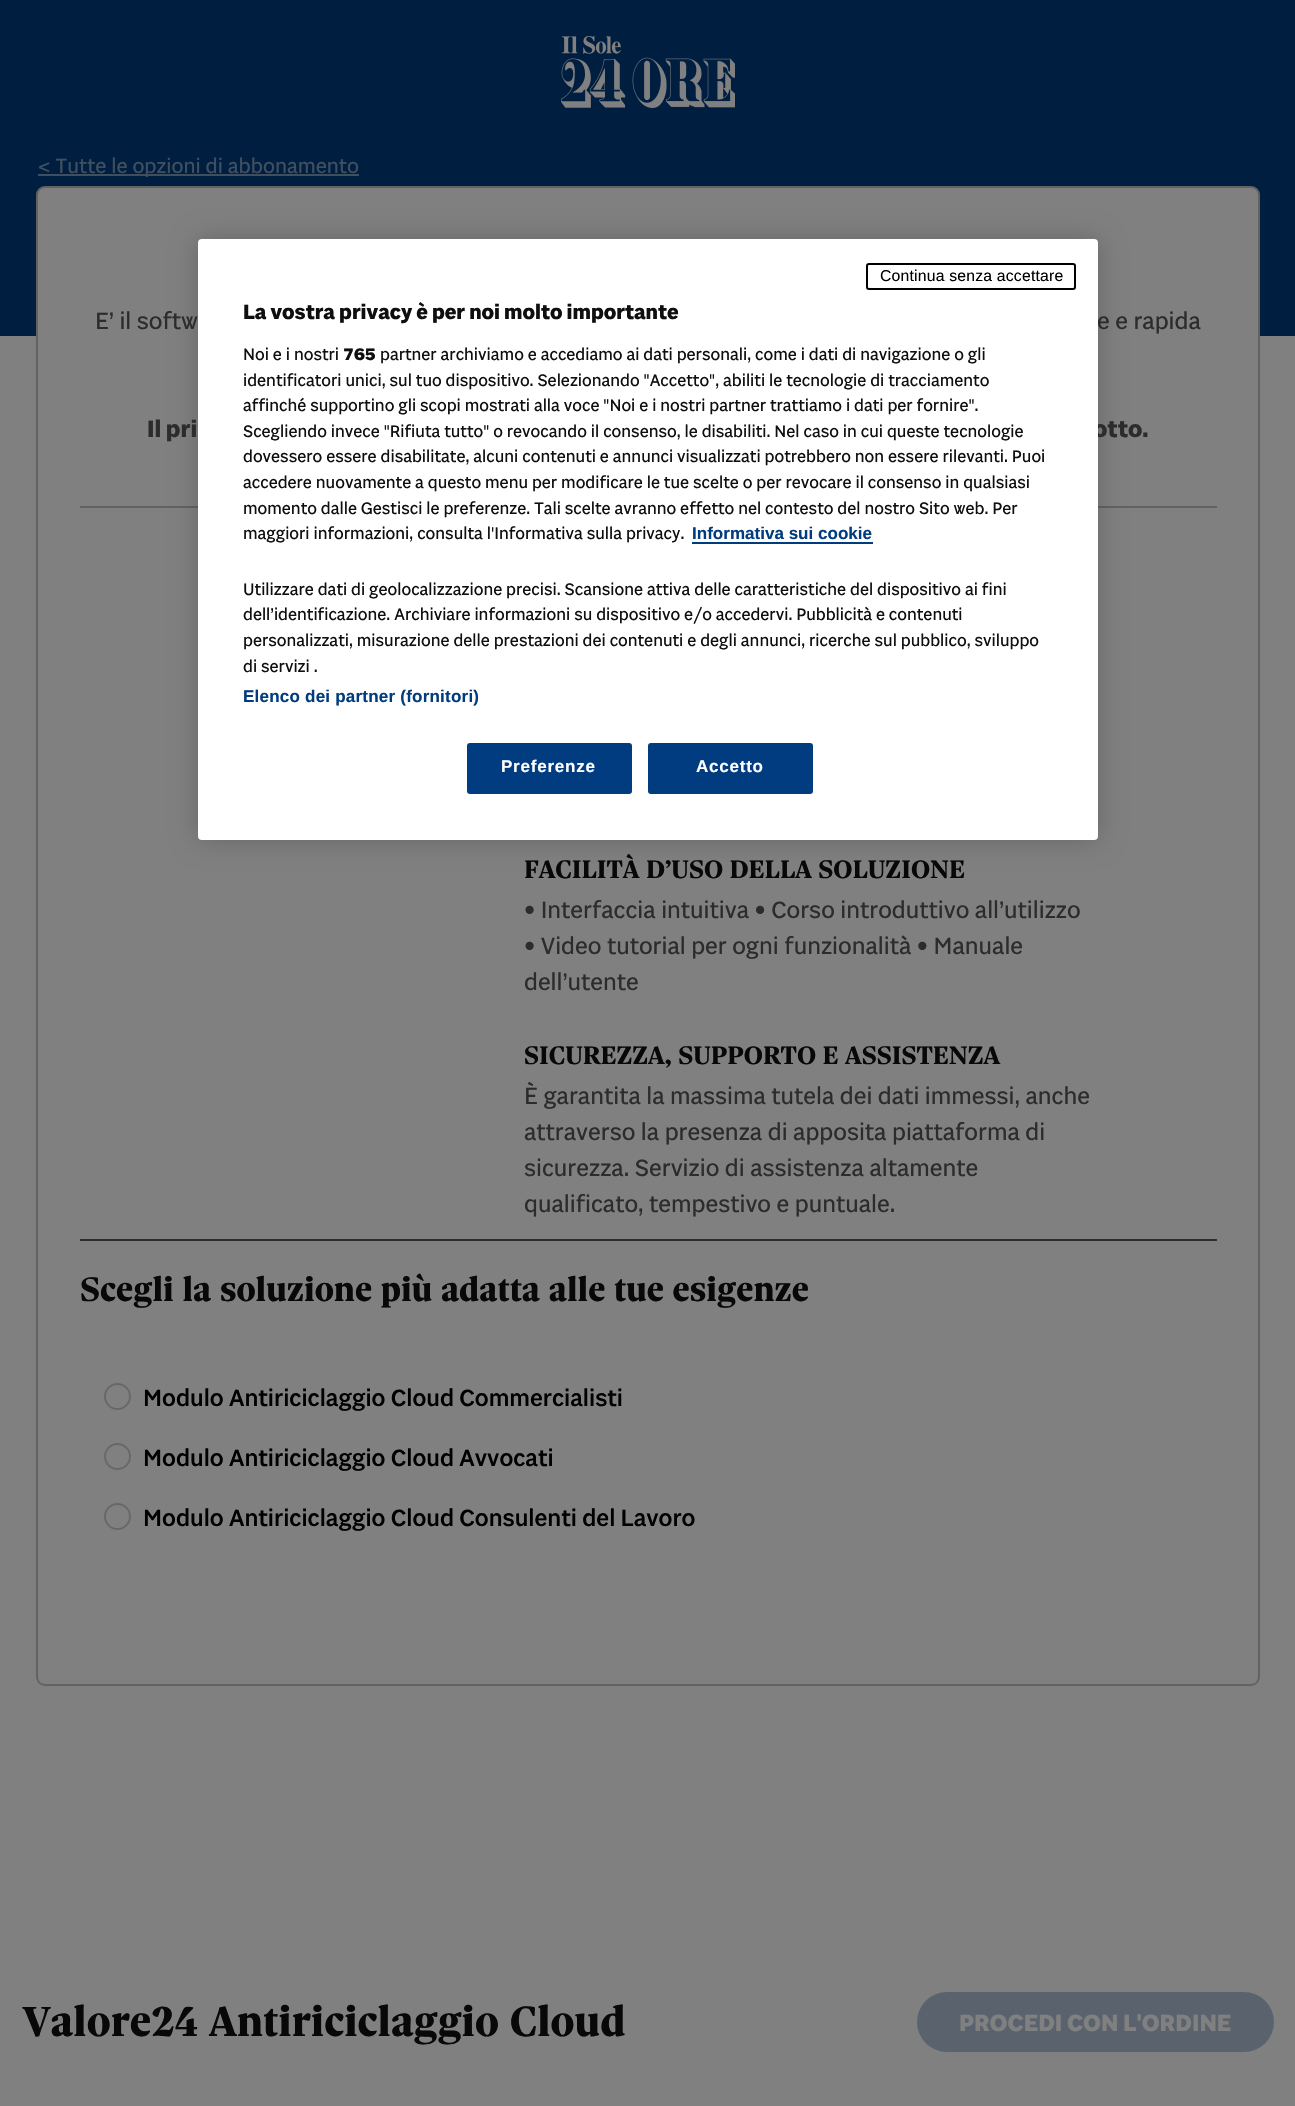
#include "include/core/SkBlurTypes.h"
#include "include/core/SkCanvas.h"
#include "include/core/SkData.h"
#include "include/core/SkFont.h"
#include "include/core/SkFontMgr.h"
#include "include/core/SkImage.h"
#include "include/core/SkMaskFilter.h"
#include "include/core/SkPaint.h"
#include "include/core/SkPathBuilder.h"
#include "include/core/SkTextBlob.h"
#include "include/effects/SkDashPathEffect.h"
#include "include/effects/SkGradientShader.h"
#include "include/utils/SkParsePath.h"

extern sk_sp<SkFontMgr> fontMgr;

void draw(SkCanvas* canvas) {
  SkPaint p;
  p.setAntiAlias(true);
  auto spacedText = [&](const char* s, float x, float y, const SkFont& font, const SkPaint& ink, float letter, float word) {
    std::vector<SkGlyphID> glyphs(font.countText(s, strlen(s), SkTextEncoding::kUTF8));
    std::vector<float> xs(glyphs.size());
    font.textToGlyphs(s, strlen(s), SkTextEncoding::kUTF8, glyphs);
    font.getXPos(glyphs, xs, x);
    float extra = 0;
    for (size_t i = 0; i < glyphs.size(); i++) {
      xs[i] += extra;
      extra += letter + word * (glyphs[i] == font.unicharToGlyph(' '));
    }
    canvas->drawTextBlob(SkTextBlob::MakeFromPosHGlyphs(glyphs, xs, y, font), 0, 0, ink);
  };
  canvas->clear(SkColorSetRGB(128, 128, 128));
  p.setColor(SkColorSetRGB(0, 30, 64));
  canvas->drawRect(SkRect::MakeLTRB(0, 0, 1295, 336), p);
  canvas->drawImageRect(SkImages::DeferredFromEncodedData(SkData::MakeFromFileName("images/1.png")), SkRect::MakeLTRB(561, 36, 735, 108), SkSamplingOptions());
  p.setColor(SkColorSetRGB(128, 128, 128));
  canvas->drawRoundRect(SkRect::MakeLTRB(36, 186, 1260, 1686), 9, 9, p);
  p.setStyle(SkPaint::kStroke_Style);
  p.setStrokeWidth(2);
  p.setColor(SkColorSetARGB(64, 8, 8, 8));
  canvas->drawRoundRect(SkRect::MakeLTRB(37, 187, 1259, 1685), 8, 8, p);
  p.setStyle(SkPaint::kFill_Style);
  p.setColor(SkColorSetRGB(64, 79, 96));
  canvas->drawRect(SkRect::MakeLTRB(38, 174, 359, 176), p);
  p.setColor(SkColorSetRGB(98, 98, 98));
  canvas->drawRect(SkRect::MakeLTRB(80, 506, 1217, 508), p);
  p.setColor(SkColorSetRGB(44, 44, 44));
  canvas->drawRect(SkRect::MakeLTRB(80, 1239, 1217, 1241), p);
  p.setStyle(SkPaint::kStroke_Style);
  p.setColor(SkColorSetRGB(104, 104, 104));
  canvas->drawCircle(117.5f, 1396.5f, 12.5f, p);
  canvas->drawCircle(117.5f, 1456.5f, 12.5f, p);
  canvas->drawCircle(117.5f, 1516.5f, 12.5f, p);
  p.setStyle(SkPaint::kFill_Style);
  p.setColor(SkColorSetRGB(90, 99, 109));
  canvas->drawRoundRect(SkRect::MakeLTRB(917, 1992, 1274, 2052), 30, 30, p);
  p.setColor(SkColorSetARGB(51, 0, 0, 0));
  p.setMaskFilter(SkMaskFilter::MakeBlur(kNormal_SkBlurStyle, 13.5f));
  canvas->drawRoundRect(SkRect::MakeLTRB(198, 239, 1098, 840), 4, 4, p);
  p.setMaskFilter(nullptr);
  SkFont font1(fontMgr->matchFamilyStyle("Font", SkFontStyle::Normal()), 21);
  font1.setSubpixel(true);
  p.setColor(SkColorSetRGB(64, 79, 96));
  canvas->drawString("< Tutte le opzioni di abbonamento", 38, 173, font1, p);
  SkFont font2(fontMgr->matchFamilyStyle("Font", SkFontStyle::Normal()), 24);
  font2.setSubpixel(true);
  p.setColor(SkColorSetRGB(44, 44, 44));
  canvas->drawString("E’ il softw", 95, 329, font2, p);
  canvas->drawString("e e rapida", 1097, 329, font2, p);
  SkFont font3(fontMgr->matchFamilyStyle("Font", SkFontStyle::Bold()), 24);
  font3.setSubpixel(true);
  canvas->drawString("Il pri", 147, 437, font3, p);
  canvas->drawString("otto.", 1093, 437, font3, p);
  SkFont font4(fontMgr->matchFamilyStyle("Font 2", SkFontStyle::Bold()), 27);
  font4.setSubpixel(true);
  p.setColor(SkColorSetRGB(8, 8, 8));
  canvas->drawString("FACILITÀ D’USO DELLA SOLUZIONE", 524, 878, font4, p);
  p.setColor(SkColorSetRGB(44, 44, 44));
  canvas->drawString("• Interfaccia intuitiva • Corso introduttivo all’utilizzo", 524, 918, font2, p);
  canvas->drawString("• Video tutorial per ogni funzionalità • Manuale", 524, 954, font2, p);
  canvas->drawString("dell’utente", 524, 990, font2, p);
  p.setColor(SkColorSetRGB(8, 8, 8));
  canvas->drawString("SICUREZZA, SUPPORTO E ASSISTENZA", 524, 1064, font4, p);
  p.setColor(SkColorSetRGB(44, 44, 44));
  canvas->drawString("È garantita la massima tutela dei dati immessi, anche", 524, 1104, font2, p);
  canvas->drawString("attraverso la presenza di apposita piattaforma di", 524, 1140, font2, p);
  canvas->drawString("sicurezza. Servizio di assistenza altamente", 524, 1176, font2, p);
  canvas->drawString("qualificato, tempestivo e puntuale.", 524, 1212, font2, p);
  SkFont font5(fontMgr->matchFamilyStyle("Font 2", SkFontStyle::Bold()), 36);
  font5.setSubpixel(true);
  p.setColor(SkColorSetRGB(8, 8, 8));
  canvas->drawString("Scegli la soluzione più adatta alle tue esigenze", 80, 1301, font5, p);
  SkFont font6(fontMgr->matchFamilyStyle("Font", SkFontStyle(500, SkFontStyle::kNormal_Width, SkFontStyle::kUpright_Slant)), 24);
  font6.setSubpixel(true);
  p.setColor(SK_ColorBLACK);
  canvas->drawString("Modulo Antiriciclaggio Cloud Commercialisti", 143, 1406, font6, p);
  canvas->drawString("Modulo Antiriciclaggio Cloud Avvocati", 143, 1466, font6, p);
  canvas->drawString("Modulo Antiriciclaggio Cloud Consulenti del Lavoro", 143, 1526, font6, p);
  SkFont font7(fontMgr->matchFamilyStyle("Font 2", SkFontStyle::Bold()), 45);
  font7.setSubpixel(true);
  p.setColor(SkColorSetRGB(8, 8, 8));
  canvas->drawString("Valore24 Antiriciclaggio Cloud", 23, 2036, font7, p);
  p.setColor(SkColorSetRGB(128, 128, 128));
  canvas->drawString("PROCEDI CON L'ORDINE", 959, 2031, font3, p);
  p.setColor(SK_ColorWHITE);
  canvas->drawRoundRect(SkRect::MakeLTRB(198, 239, 1098, 840), 4, 4, p);
  p.setStyle(SkPaint::kStroke_Style);
  p.setColor(SK_ColorBLACK);
  canvas->drawRoundRect(SkRect::MakeLTRB(867, 264, 1075, 289), 2, 2, p);
  SkFont font8(fontMgr->matchFamilyStyle("Liberation Sans", SkFontStyle::Normal()), 15.75f);
  font8.setSubpixel(true);
  p.setStyle(SkPaint::kFill_Style);
  spacedText("Continua senza accettare", 880, 281, font8, p, 0.2f, 0);
  SkFont font9(fontMgr->matchFamilyStyle("Font", SkFontStyle::Bold()), 21);
  font9.setSubpixel(true);
  p.setColor(SkColorSetRGB(15, 15, 15));
  canvas->drawString("La vostra privacy è per noi molto importante", 243, 319, font9, p);
  SkFont font10(fontMgr->matchFamilyStyle("Font", SkFontStyle::Normal()), 17.05f);
  font10.setSubpixel(true);
  canvas->drawString("Noi e i nostri", 243, 360, font10, p);
  SkFont font11(fontMgr->matchFamilyStyle("Font", SkFontStyle::Bold()), 17.05f);
  font11.setSubpixel(true);
  canvas->drawString("765", 343, 360, font11, p);
  canvas->drawString("partner archiviamo e accediamo ai dati personali, come i dati di navigazione o gli", 380, 360, font10, p);
  canvas->drawString("identificatori unici, sul tuo dispositivo. Selezionando \"Accetto\", abiliti le tecnologie di tracciamento", 243, 386, font10, p);
  canvas->drawString("affinché supportino gli scopi mostrati alla voce \"Noi e i nostri partner trattiamo i dati per fornire\".", 243, 411, font10, p);
  canvas->drawString("Scegliendo invece \"Rifiuta tutto\" o revocando il consenso, le disabiliti. Nel caso in cui queste tecnologie", 243, 437, font10, p);
  canvas->drawString("dovessero essere disabilitate, alcuni contenuti e annunci visualizzati potrebbero non essere rilevanti. Puoi", 243, 462, font10, p);
  canvas->drawString("accedere nuovamente a questo menu per modificare le tue scelte o per revocare il consenso in qualsiasi", 243, 488, font10, p);
  canvas->drawString("momento dalle Gestisci le preferenze. Tali scelte avranno effetto nel contesto del nostro Sito web. Per", 243, 514, font10, p);
  canvas->drawString("maggiori informazioni, consulta l'Informativa sulla privacy.", 243, 539, font10, p);
  SkFont font12(fontMgr->matchFamilyStyle("Liberation Sans", SkFontStyle::Bold()), 17.05f);
  font12.setSubpixel(true);
  p.setColor(SkColorSetRGB(0, 60, 127));
  canvas->drawString("Informativa sui cookie", 692, 539, font12, p);
  canvas->drawRect(SkRect::MakeLTRB(692, 542, 873, 544), p);
  p.setColor(SkColorSetRGB(15, 15, 15));
  canvas->drawString("Utilizzare dati di geolocalizzazione precisi. Scansione attiva delle caratteristiche del dispositivo ai fini", 243, 595, font10, p);
  canvas->drawString("dell’identificazione. Archiviare informazioni su dispositivo e/o accedervi. Pubblicità e contenuti", 243, 620, font10, p);
  canvas->drawString("personalizzati, misurazione delle prestazioni dei contenuti e degli annunci, ricerche sul pubblico, sviluppo", 243, 646, font10, p);
  canvas->drawString("di servizi .", 243, 672, font10, p);
  p.setColor(SkColorSetRGB(0, 60, 127));
  spacedText("Elenco dei partner (fornitori)", 243, 702, font12, p, 0.2f, 0);
  canvas->drawRoundRect(SkRect::MakeLTRB(468, 744, 631, 793), 2, 2, p);
  p.setStyle(SkPaint::kStroke_Style);
  canvas->drawRoundRect(SkRect::MakeLTRB(468, 744, 631, 793), 2, 2, p);
  p.setStyle(SkPaint::kFill_Style);
  p.setColor(SK_ColorWHITE);
  spacedText("Preferenze", 501, 772, font12, p, 0.75f, 0);
  p.setColor(SkColorSetRGB(0, 60, 127));
  canvas->drawRoundRect(SkRect::MakeLTRB(649, 744, 812, 793), 2, 2, p);
  p.setStyle(SkPaint::kStroke_Style);
  canvas->drawRoundRect(SkRect::MakeLTRB(649, 744, 812, 793), 2, 2, p);
  p.setStyle(SkPaint::kFill_Style);
  p.setColor(SK_ColorWHITE);
  spacedText("Accetto", 696, 772, font12, p, 0.75f, 0);
}
